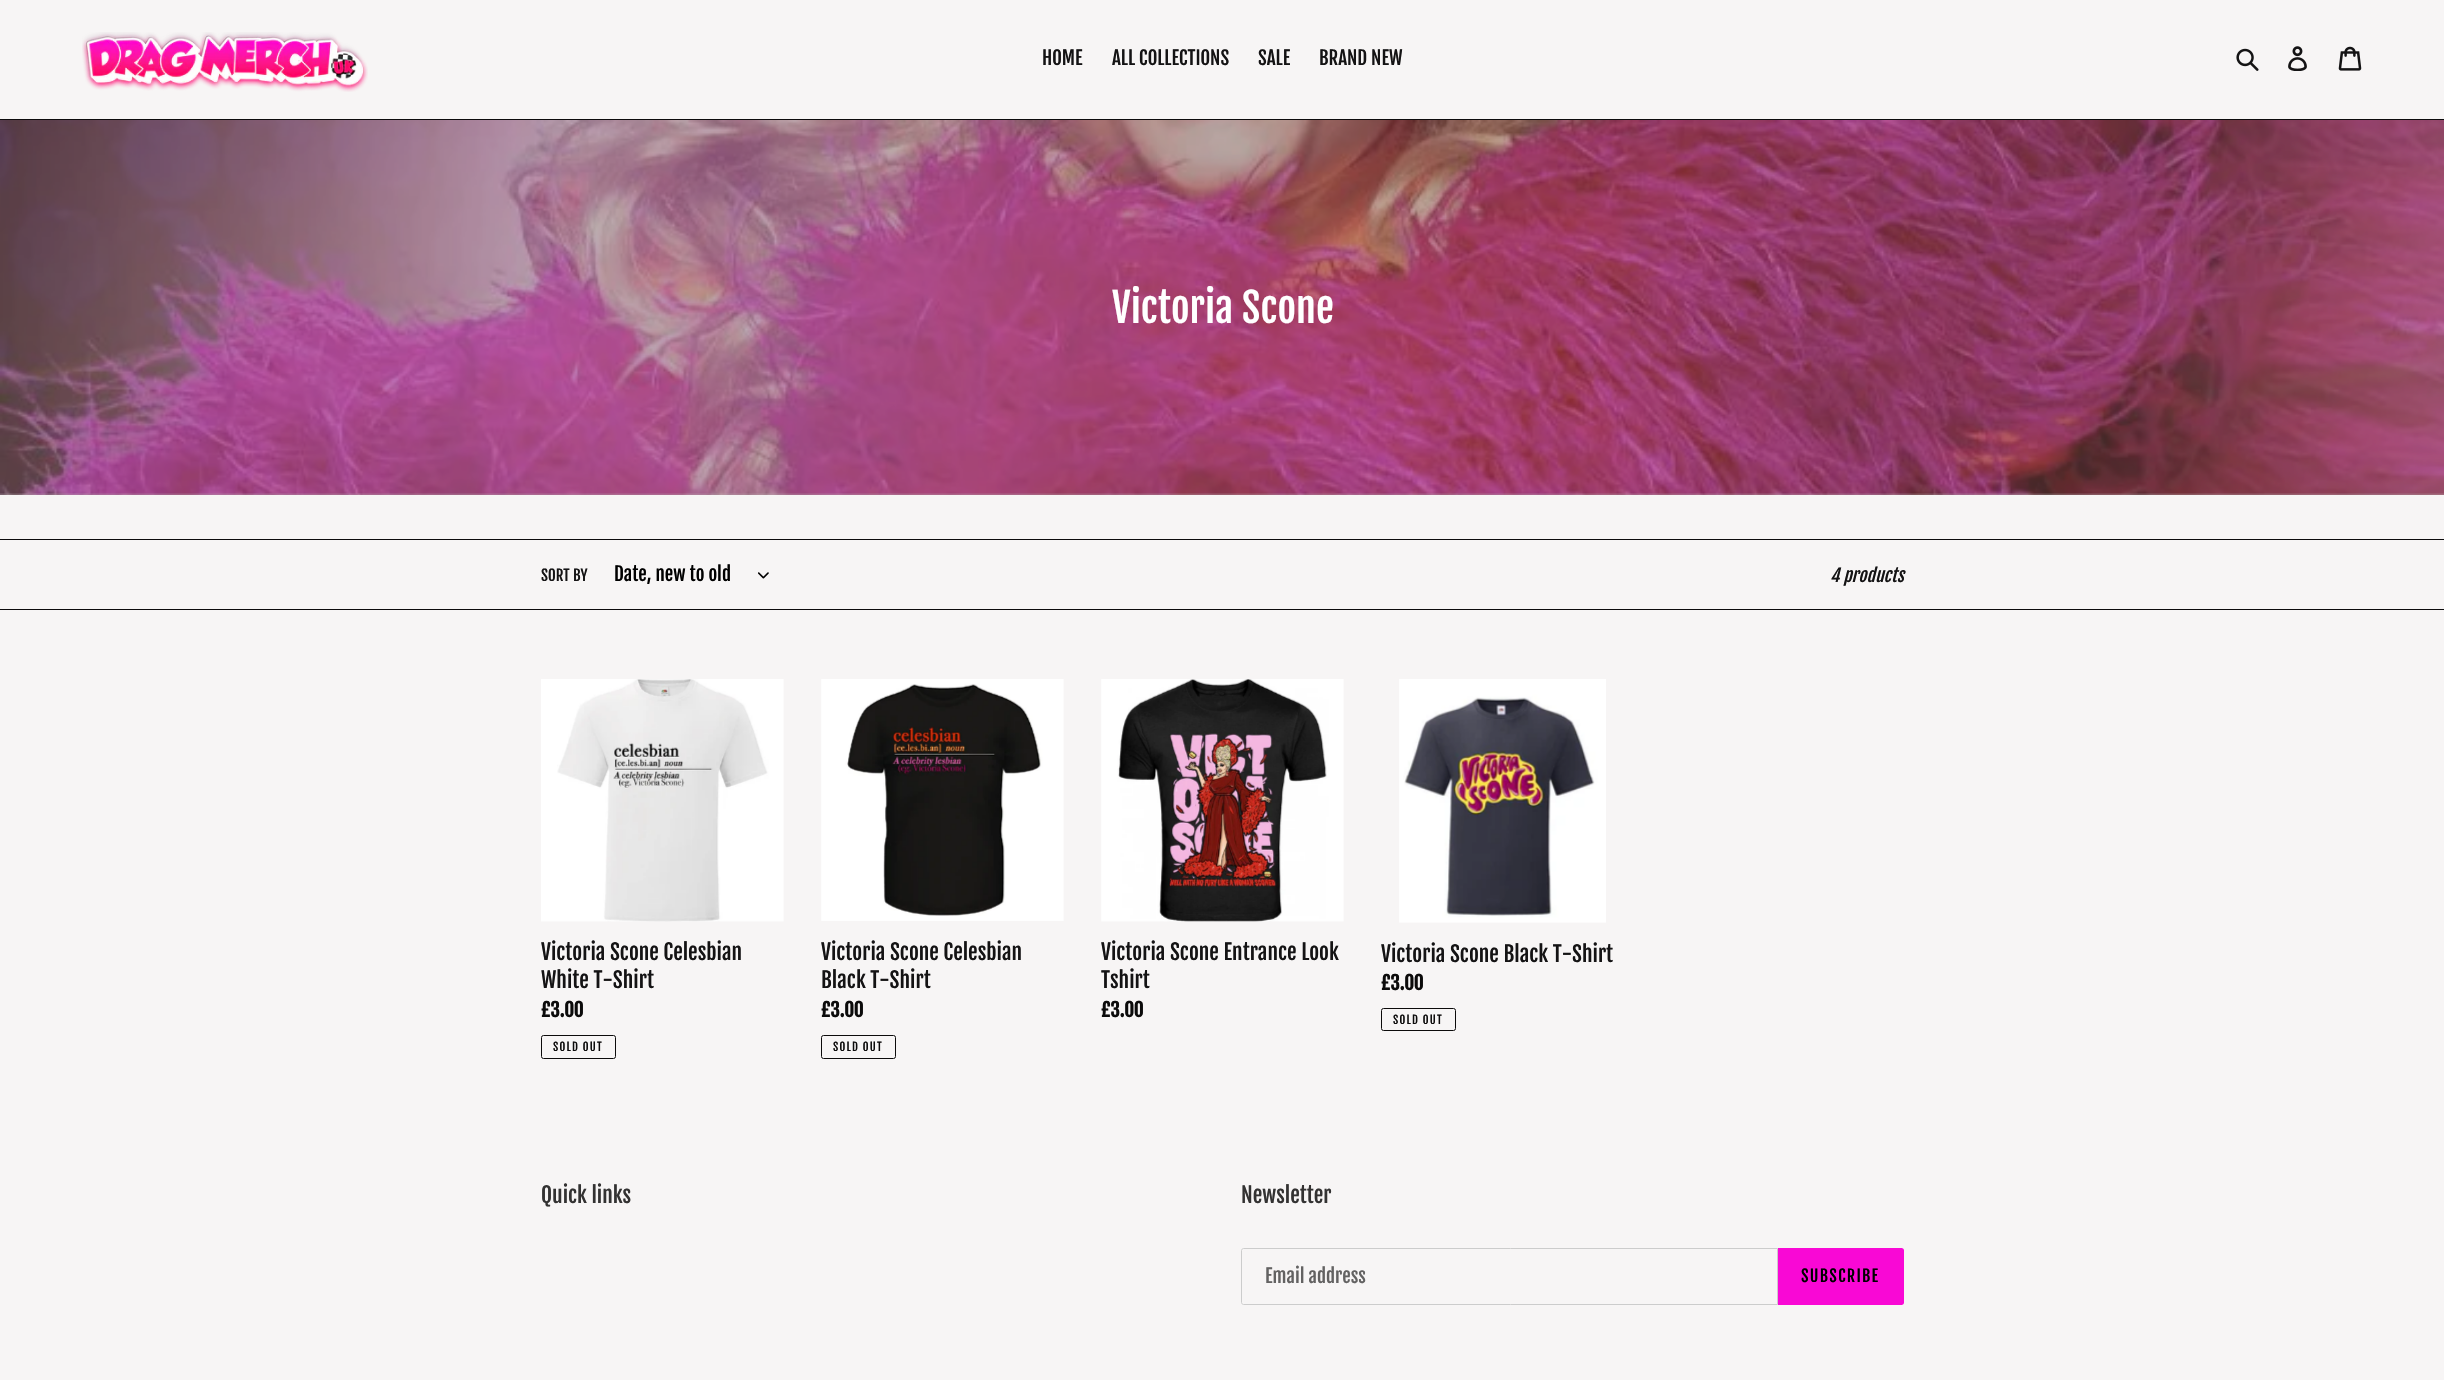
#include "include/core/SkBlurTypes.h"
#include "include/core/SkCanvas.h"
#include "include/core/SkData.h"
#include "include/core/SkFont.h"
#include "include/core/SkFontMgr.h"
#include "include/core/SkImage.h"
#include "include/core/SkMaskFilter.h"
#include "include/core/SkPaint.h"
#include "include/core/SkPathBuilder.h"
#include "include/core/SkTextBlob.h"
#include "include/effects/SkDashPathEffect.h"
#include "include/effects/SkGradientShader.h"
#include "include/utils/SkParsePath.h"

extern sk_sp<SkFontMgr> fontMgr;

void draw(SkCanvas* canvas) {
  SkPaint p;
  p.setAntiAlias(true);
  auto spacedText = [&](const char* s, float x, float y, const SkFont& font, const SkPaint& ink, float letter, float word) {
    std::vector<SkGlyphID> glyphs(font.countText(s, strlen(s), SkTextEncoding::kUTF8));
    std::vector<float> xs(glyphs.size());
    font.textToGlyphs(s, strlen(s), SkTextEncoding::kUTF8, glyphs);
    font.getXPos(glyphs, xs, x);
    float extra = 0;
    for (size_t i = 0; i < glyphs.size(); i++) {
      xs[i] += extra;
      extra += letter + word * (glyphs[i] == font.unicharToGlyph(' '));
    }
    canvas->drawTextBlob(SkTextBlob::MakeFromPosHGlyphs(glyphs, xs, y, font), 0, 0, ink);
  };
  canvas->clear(SkColorSetRGB(247, 245, 245));
  p.setColor(SkColorSetRGB(183, 174, 174));
  canvas->drawRect(SkRect::MakeLTRB(0, 493, 2444, 495), p);
  p.setColor(SkColorSetRGB(12, 11, 12));
  canvas->drawRect(SkRect::MakeLTRB(0, 119, 2444, 120), p);
  canvas->drawImageRect(SkImages::DeferredFromEncodedData(SkData::MakeFromFileName("images/1.png")), SkRect::MakeLTRB(82, 32, 368, 92), SkSamplingOptions());
  canvas->drawImageRect(SkImages::DeferredFromEncodedData(SkData::MakeFromFileName("images/2.png")), SkRect::MakeLTRB(2236, 48, 2259, 71), SkSamplingOptions());
  canvas->drawImageRect(SkImages::DeferredFromEncodedData(SkData::MakeFromFileName("images/3.png")), SkRect::MakeLTRB(2288, 46, 2307, 71), SkSamplingOptions());
  canvas->drawImageRect(SkImages::DeferredFromEncodedData(SkData::MakeFromFileName("images/4.png")), SkRect::MakeLTRB(2338, 46, 2362, 71), SkSamplingOptions());
  canvas->drawImageRect(SkImages::DeferredFromEncodedData(SkData::MakeFromFileName("images/5.png")), SkRect::MakeLTRB(0, 120, 2444, 495), SkSamplingOptions());
  canvas->drawRect(SkRect::MakeLTRB(0, 539, 2444, 540), p);
  canvas->drawRect(SkRect::MakeLTRB(0, 609, 2444, 610), p);
  canvas->drawImageRect(SkImages::DeferredFromEncodedData(SkData::MakeFromFileName("images/6.png")), SkRect::MakeLTRB(758, 572, 769, 579), SkSamplingOptions());
  canvas->drawImageRect(SkImages::DeferredFromEncodedData(SkData::MakeFromFileName("images/7.png")), SkRect::MakeLTRB(541, 679, 784, 922), SkSamplingOptions());
  p.setStyle(SkPaint::kStroke_Style);
  p.setStrokeWidth(1);
  p.setColor(SkColorSetRGB(12, 11, 11));
  canvas->drawRoundRect(SkRect::MakeLTRB(541.5f, 1035.5f, 615.5f, 1058.5f), 2, 2, p);
  canvas->drawImageRect(SkImages::DeferredFromEncodedData(SkData::MakeFromFileName("images/8.png")), SkRect::MakeLTRB(821, 679, 1064, 921), SkSamplingOptions());
  canvas->drawRoundRect(SkRect::MakeLTRB(821.5f, 1035.5f, 895.5f, 1058.5f), 2, 2, p);
  canvas->drawImageRect(SkImages::DeferredFromEncodedData(SkData::MakeFromFileName("images/9.png")), SkRect::MakeLTRB(1101, 679, 1344, 922), SkSamplingOptions());
  canvas->drawImageRect(SkImages::DeferredFromEncodedData(SkData::MakeFromFileName("images/10.png")), SkRect::MakeLTRB(1399, 679, 1606, 923), SkSamplingOptions());
  canvas->drawRoundRect(SkRect::MakeLTRB(1381.5f, 1008.5f, 1455.5f, 1030.5f), 2, 2, p);
  p.setColor(SkColorSetRGB(204, 204, 204));
  canvas->drawPath(SkPathBuilder().moveTo(1243.5f, 1248.5f).lineTo(1777.5f, 1248.5f).lineTo(1777.5f, 1304.5f).lineTo(1243.5f, 1304.5f).cubicTo(1242.5f, 1304.5f, 1241.5f, 1303.5f, 1241.5f, 1302.5f).lineTo(1241.5f, 1250.5f).cubicTo(1241.5f, 1249.5f, 1242.5f, 1248.5f, 1243.5f, 1248.5f).close().detach(), p);
  p.setStyle(SkPaint::kFill_Style);
  p.setColor(SkColorSetRGB(249, 8, 213));
  canvas->drawPath(SkPathBuilder().moveTo(1778, 1248).lineTo(1901.5f, 1248).cubicTo(1903, 1248, 1904, 1249, 1904, 1250.5f).lineTo(1904, 1302.5f).cubicTo(1904, 1304, 1903, 1305, 1901.5f, 1305).lineTo(1778, 1305).close().detach(), p);
  SkFont font1(fontMgr->matchFamilyStyle("Fjalla One", SkFontStyle::Normal()), 18.75f);
  font1.setSubpixel(true);
  p.setColor(SkColorSetRGB(20, 19, 20));
  canvas->drawString("HOME", 1042, 65, font1, p);
  canvas->drawString("ALL COLLECTIONS", 1112, 65, font1, p);
  canvas->drawString("SALE", 1258, 65, font1, p);
  canvas->drawString("BRAND NEW", 1319, 65, font1, p);
  SkFont font2(fontMgr->matchFamilyStyle("Fjalla One", SkFontStyle::Normal()), 40);
  font2.setSubpixel(true);
  p.setColor(SK_ColorWHITE);
  canvas->drawString("Victoria Scone", 1112, 323, font2, p);
  SkFont font3(fontMgr->matchFamilyStyle("Fjalla One", SkFontStyle::Normal()), 15);
  font3.setSubpixel(true);
  p.setColor(SkColorSetRGB(20, 19, 20));
  canvas->drawString("SORT BY", 541, 581, font3, p);
  p.setColor(SK_ColorBLACK);
  canvas->drawString("Date, new to old", 614, 581, font1, p);
  SkFont font4(fontMgr->matchFamilyStyle("Fjalla One", SkFontStyle::Italic()), 17.5f);
  font4.setSubpixel(true);
  p.setColor(SkColorSetRGB(20, 19, 20));
  canvas->drawString("4 products", 1830, 582, font4, p);
  SkFont font5(fontMgr->matchFamilyStyle("Fjalla One", SkFontStyle::Normal()), 21.25f);
  font5.setSubpixel(true);
  canvas->drawString("Victoria Scone Celesbian", 541, 960, font5, p);
  canvas->drawString("White T-Shirt", 541, 988, font5, p);
  SkFont font6(fontMgr->matchFamilyStyle("Fjalla One", SkFontStyle::Bold()), 18.75f);
  font6.setSubpixel(true);
  p.setColor(SkColorSetRGB(12, 11, 11));
  canvas->drawString("£3.00", 541, 1017, font6, p);
  SkFont font7(fontMgr->matchFamilyStyle("Fjalla One", SkFontStyle::Normal()), 11.25f);
  font7.setSubpixel(true);
  spacedText("SOLD OUT", 553, 1051, font7, p, 1.25f, 0);
  p.setColor(SkColorSetRGB(20, 19, 20));
  canvas->drawString("Victoria Scone Celesbian", 821, 960, font5, p);
  canvas->drawString("Black T-Shirt", 821, 988, font5, p);
  p.setColor(SkColorSetRGB(12, 11, 11));
  canvas->drawString("£3.00", 821, 1017, font6, p);
  spacedText("SOLD OUT", 833, 1051, font7, p, 1.25f, 0);
  p.setColor(SkColorSetRGB(20, 19, 20));
  canvas->drawString("Victoria Scone Entrance Look", 1101, 960, font5, p);
  canvas->drawString("Tshirt", 1101, 988, font5, p);
  p.setColor(SkColorSetRGB(12, 11, 11));
  canvas->drawString("£3.00", 1101, 1017, font6, p);
  p.setColor(SkColorSetRGB(20, 19, 20));
  canvas->drawString("Victoria Scone Black T-Shirt", 1381, 962, font5, p);
  p.setColor(SkColorSetRGB(12, 11, 11));
  canvas->drawString("£3.00", 1381, 990, font6, p);
  spacedText("SOLD OUT", 1393, 1024, font7, p, 1.25f, 0);
  p.setColor(SkColorSetRGB(51, 50, 50));
  canvas->drawString("Quick links", 541, 1203, font5, p);
  canvas->drawString("Newsletter", 1241, 1203, font5, p);
  p.setColor(SkColorSetRGB(99, 98, 98));
  canvas->drawString("Email address", 1265, 1283, font1, p);
  SkFont font8(fontMgr->matchFamilyStyle("Fjalla One", SkFontStyle::Normal()), 16.25f);
  font8.setSubpixel(true);
  p.setColor(SK_ColorBLACK);
  spacedText("SUBSCRIBE", 1801, 1282, font8, p, 1.25f, 0);
}
